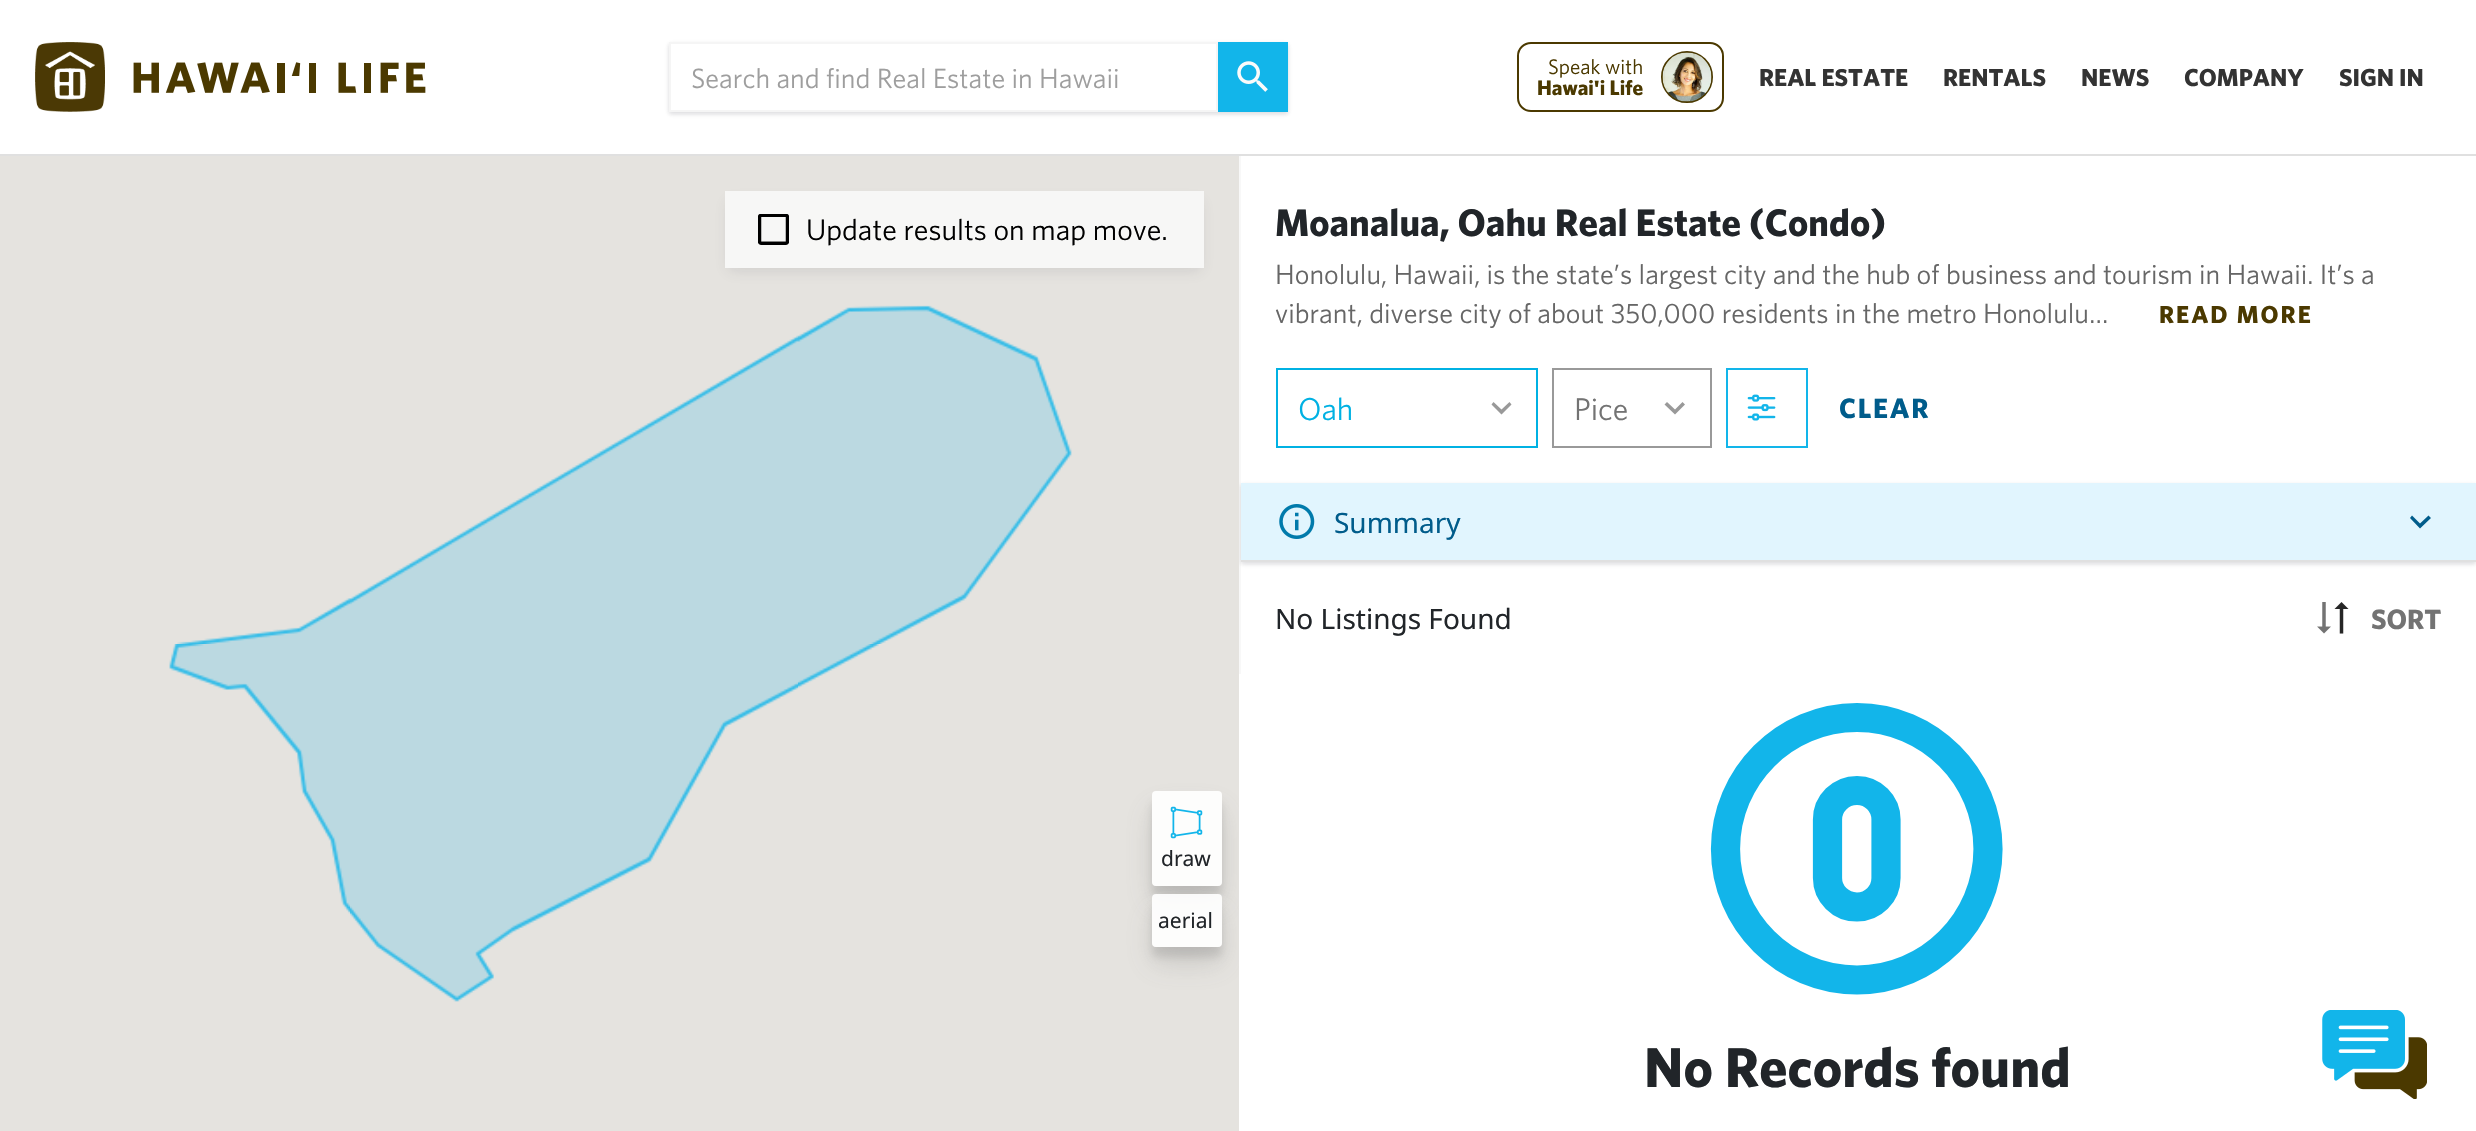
#include "include/core/SkBlurTypes.h"
#include "include/core/SkCanvas.h"
#include "include/core/SkData.h"
#include "include/core/SkFont.h"
#include "include/core/SkFontMgr.h"
#include "include/core/SkImage.h"
#include "include/core/SkMaskFilter.h"
#include "include/core/SkPaint.h"
#include "include/core/SkPathBuilder.h"
#include "include/core/SkTextBlob.h"
#include "include/effects/SkDashPathEffect.h"
#include "include/effects/SkGradientShader.h"
#include "include/utils/SkParsePath.h"

extern sk_sp<SkFontMgr> fontMgr;

void draw(SkCanvas* canvas) {
  SkPaint p;
  p.setAntiAlias(true);
  auto spacedText = [&](const char* s, float x, float y, const SkFont& font, const SkPaint& ink, float letter, float word) {
    std::vector<SkGlyphID> glyphs(font.countText(s, strlen(s), SkTextEncoding::kUTF8));
    std::vector<float> xs(glyphs.size());
    font.textToGlyphs(s, strlen(s), SkTextEncoding::kUTF8, glyphs);
    font.getXPos(glyphs, xs, x);
    float extra = 0;
    for (size_t i = 0; i < glyphs.size(); i++) {
      xs[i] += extra;
      extra += letter + word * (glyphs[i] == font.unicharToGlyph(' '));
    }
    canvas->drawTextBlob(SkTextBlob::MakeFromPosHGlyphs(glyphs, xs, y, font), 0, 0, ink);
  };
  canvas->clear(SK_ColorWHITE);
  p.setColor(SkColorSetRGB(224, 224, 224));
  canvas->drawRect(SkRect::MakeLTRB(0, 154, 2476, 156), p);
  canvas->drawImageRect(SkImages::DeferredFromEncodedData(SkData::MakeFromFileName("images/1.png")), SkRect::MakeLTRB(35, 42, 105, 112), SkSamplingOptions());
  canvas->drawImageRect(SkImages::DeferredFromEncodedData(SkData::MakeFromFileName("images/2.png")), SkRect::MakeLTRB(133, 62, 426, 93), SkSamplingOptions());
  canvas->save();
  canvas->clipPath(SkPathBuilder(SkPathFillType::kEvenOdd).moveTo(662, 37).lineTo(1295, 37).lineTo(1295, 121).lineTo(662, 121).close().moveTo(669, 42).lineTo(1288, 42).lineTo(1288, 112).lineTo(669, 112).close().detach(), true);
  p.setColor(SkColorSetARGB(15, 16, 24, 40));
  p.setMaskFilter(SkMaskFilter::MakeBlur(kNormal_SkBlurStyle, 2));
  canvas->drawRect(SkRect::MakeLTRB(669, 44, 1288, 114), p);
  p.setMaskFilter(nullptr);
  canvas->restore();
  canvas->save();
  canvas->clipPath(SkPathBuilder(SkPathFillType::kEvenOdd).moveTo(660, 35).lineTo(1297, 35).lineTo(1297, 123).lineTo(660, 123).close().moveTo(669, 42).lineTo(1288, 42).lineTo(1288, 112).lineTo(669, 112).close().detach(), true);
  p.setColor(SkColorSetARGB(26, 16, 24, 40));
  p.setMaskFilter(SkMaskFilter::MakeBlur(kNormal_SkBlurStyle, 2.5f));
  canvas->drawRect(SkRect::MakeLTRB(669, 44, 1288, 114), p);
  p.setMaskFilter(nullptr);
  canvas->restore();
  p.setStyle(SkPaint::kStroke_Style);
  p.setStrokeWidth(2);
  p.setColor(SkColorSetRGB(245, 245, 245));
  canvas->drawRect(SkRect::MakeLTRB(670, 43, 1217, 111), p);
  p.setStyle(SkPaint::kFill_Style);
  p.setColor(SkColorSetRGB(18, 181, 234));
  canvas->drawRect(SkRect::MakeLTRB(1218, 42, 1288, 112), p);
  canvas->drawImageRect(SkImages::DeferredFromEncodedData(SkData::MakeFromFileName("images/3.png")), SkRect::MakeLTRB(1237, 61, 1268, 92), SkSamplingOptions());
  p.setStyle(SkPaint::kStroke_Style);
  p.setColor(SkColorSetRGB(75, 57, 0));
  canvas->drawRoundRect(SkRect::MakeLTRB(1518, 43, 1723, 111), 13, 13, p);
  canvas->drawCircle(1687, 77, 25, p);
  canvas->drawImageRect(SkImages::DeferredFromEncodedData(SkData::MakeFromFileName("images/4.png")), SkRect::MakeLTRB(1662, 52, 1712, 102), SkSamplingOptions());
  p.setStyle(SkPaint::kFill_Style);
  p.setColor(SkColorSetRGB(248, 248, 248));
  canvas->drawRect(SkRect::MakeLTRB(1239, 156, 1241, 674), p);
  p.setColor(SkColorSetARGB(15, 16, 24, 40));
  p.setMaskFilter(SkMaskFilter::MakeBlur(kNormal_SkBlurStyle, 2));
  canvas->drawRect(SkRect::MakeLTRB(1241, 485, 2476, 564), p);
  p.setMaskFilter(nullptr);
  p.setColor(SkColorSetARGB(26, 16, 24, 40));
  p.setMaskFilter(SkMaskFilter::MakeBlur(kNormal_SkBlurStyle, 2.5f));
  canvas->drawRect(SkRect::MakeLTRB(1241, 485, 2476, 564), p);
  p.setMaskFilter(nullptr);
  p.setColor(SkColorSetRGB(229, 227, 223));
  canvas->drawRect(SkRect::MakeLTRB(0, 156, 1239, 1131), p);
  canvas->drawImageRect(SkImages::DeferredFromEncodedData(SkData::MakeFromFileName("images/5.png")), SkRect::MakeLTRB(177, 598, 350, 644), SkSamplingOptions());
  canvas->drawImageRect(SkImages::DeferredFromEncodedData(SkData::MakeFromFileName("images/6.png")), SkRect::MakeLTRB(350, 335, 798, 644), SkSamplingOptions());
  canvas->drawImageRect(SkImages::DeferredFromEncodedData(SkData::MakeFromFileName("images/7.png")), SkRect::MakeLTRB(798, 305, 1072, 644), SkSamplingOptions());
  canvas->drawImageRect(SkImages::DeferredFromEncodedData(SkData::MakeFromFileName("images/8.png")), SkRect::MakeLTRB(169, 644, 350, 914), SkSamplingOptions());
  canvas->drawImageRect(SkImages::DeferredFromEncodedData(SkData::MakeFromFileName("images/9.png")), SkRect::MakeLTRB(350, 644, 798, 1002), SkSamplingOptions());
  canvas->drawImageRect(SkImages::DeferredFromEncodedData(SkData::MakeFromFileName("images/10.png")), SkRect::MakeLTRB(798, 644, 879, 689), SkSamplingOptions());
  canvas->save();
  canvas->clipPath(SkPathBuilder(SkPathFillType::kEvenOdd).moveTo(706, 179).lineTo(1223, 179).lineTo(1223, 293).lineTo(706, 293).close().moveTo(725, 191).lineTo(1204, 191).lineTo(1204, 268).lineTo(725, 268).close().detach(), true);
  p.setColor(SkColorSetARGB(26, 16, 24, 40));
  p.setMaskFilter(SkMaskFilter::MakeBlur(kNormal_SkBlurStyle, 7));
  canvas->drawRect(SkRect::MakeLTRB(728, 201, 1201, 271), p);
  p.setMaskFilter(nullptr);
  canvas->restore();
  p.setColor(SkColorSetARGB(179, 255, 255, 255));
  canvas->drawRect(SkRect::MakeLTRB(725, 191, 1204, 268), p);
  canvas->drawImageRect(SkImages::DeferredFromEncodedData(SkData::MakeFromFileName("images/11.png")), SkRect::MakeLTRB(758, 214, 789, 245), SkSamplingOptions());
  canvas->save();
  canvas->clipPath(SkPathBuilder(SkPathFillType::kEvenOdd).moveTo(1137, 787).lineTo(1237, 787).lineTo(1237, 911).lineTo(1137, 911).close().moveTo(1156, 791).lineTo(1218, 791).cubicTo(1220, 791, 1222, 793, 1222, 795).lineTo(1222, 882).cubicTo(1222, 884, 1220, 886, 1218, 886).lineTo(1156, 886).cubicTo(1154, 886, 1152, 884, 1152, 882).lineTo(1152, 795).cubicTo(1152, 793, 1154, 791, 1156, 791).close().detach(), true);
  p.setColor(SkColorSetARGB(48, 99, 99, 99));
  p.setMaskFilter(SkMaskFilter::MakeBlur(kNormal_SkBlurStyle, 4.5f));
  canvas->drawRoundRect(SkRect::MakeLTRB(1152, 802, 1222, 896), 4, 4, p);
  p.setMaskFilter(nullptr);
  canvas->restore();
  canvas->save();
  canvas->clipRect(SkRect::MakeLTRB(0, 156, 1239, 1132));
  canvas->clipPath(SkPathBuilder(SkPathFillType::kEvenOdd).moveTo(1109, 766).lineTo(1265, 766).lineTo(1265, 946).lineTo(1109, 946).close().moveTo(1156, 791).lineTo(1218, 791).cubicTo(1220, 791, 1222, 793, 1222, 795).lineTo(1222, 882).cubicTo(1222, 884, 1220, 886, 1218, 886).lineTo(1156, 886).cubicTo(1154, 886, 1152, 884, 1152, 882).lineTo(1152, 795).cubicTo(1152, 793, 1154, 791, 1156, 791).close().detach(), true);
  p.setColor(SkColorSetARGB(51, 99, 99, 99));
  p.setMaskFilter(SkMaskFilter::MakeBlur(kNormal_SkBlurStyle, 14));
  canvas->drawRoundRect(SkRect::MakeLTRB(1152, 809, 1222, 903), 4, 4, p);
  p.setMaskFilter(nullptr);
  canvas->restore();
  p.setColor(SkColorSetARGB(230, 255, 255, 255));
  canvas->drawRoundRect(SkRect::MakeLTRB(1152, 791, 1222, 886), 4, 4, p);
  canvas->drawImageRect(SkImages::DeferredFromEncodedData(SkData::MakeFromFileName("images/12.png")), SkRect::MakeLTRB(1170, 806, 1203, 839), SkSamplingOptions());
  canvas->save();
  canvas->clipPath(SkPathBuilder(SkPathFillType::kEvenOdd).moveTo(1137, 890).lineTo(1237, 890).lineTo(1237, 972).lineTo(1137, 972).close().moveTo(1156, 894).lineTo(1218, 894).cubicTo(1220, 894, 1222, 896, 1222, 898).lineTo(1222, 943).cubicTo(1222, 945, 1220, 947, 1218, 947).lineTo(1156, 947).cubicTo(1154, 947, 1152, 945, 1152, 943).lineTo(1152, 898).cubicTo(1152, 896, 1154, 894, 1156, 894).close().detach(), true);
  p.setColor(SkColorSetARGB(48, 99, 99, 99));
  p.setMaskFilter(SkMaskFilter::MakeBlur(kNormal_SkBlurStyle, 4.5f));
  canvas->drawRoundRect(SkRect::MakeLTRB(1152, 905, 1222, 957), 4, 4, p);
  p.setMaskFilter(nullptr);
  canvas->restore();
  canvas->save();
  canvas->clipRect(SkRect::MakeLTRB(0, 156, 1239, 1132));
  canvas->clipPath(SkPathBuilder(SkPathFillType::kEvenOdd).moveTo(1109, 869).lineTo(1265, 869).lineTo(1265, 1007).lineTo(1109, 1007).close().moveTo(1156, 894).lineTo(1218, 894).cubicTo(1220, 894, 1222, 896, 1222, 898).lineTo(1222, 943).cubicTo(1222, 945, 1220, 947, 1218, 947).lineTo(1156, 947).cubicTo(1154, 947, 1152, 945, 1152, 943).lineTo(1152, 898).cubicTo(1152, 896, 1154, 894, 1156, 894).close().detach(), true);
  p.setColor(SkColorSetARGB(51, 99, 99, 99));
  p.setMaskFilter(SkMaskFilter::MakeBlur(kNormal_SkBlurStyle, 14));
  canvas->drawRoundRect(SkRect::MakeLTRB(1152, 912, 1222, 964), 4, 4, p);
  p.setMaskFilter(nullptr);
  canvas->restore();
  p.setColor(SkColorSetARGB(230, 255, 255, 255));
  canvas->drawRoundRect(SkRect::MakeLTRB(1152, 894, 1222, 947), 4, 4, p);
  p.setStyle(SkPaint::kStroke_Style);
  p.setColor(SkColorSetRGB(0, 177, 227));
  canvas->drawRect(SkRect::MakeLTRB(1277, 369, 1537, 447), p);
  p.setStyle(SkPaint::kFill_Style);
  p.setColor(SkColorSetRGB(153, 153, 153));
  canvas->drawPath(SkPathBuilder().moveTo(1493.5f, 402).lineTo(1501.5f, 409.5f).lineTo(1509.5f, 402).lineTo(1511.5f, 404.5f).lineTo(1501.5f, 414.5f).lineTo(1491.5f, 404.5f).close().detach(), p);
  p.setStyle(SkPaint::kStroke_Style);
  canvas->drawRect(SkRect::MakeLTRB(1553, 369, 1711, 447), p);
  p.setStyle(SkPaint::kFill_Style);
  canvas->drawPath(SkPathBuilder().moveTo(1667, 402).lineTo(1675, 409.5f).lineTo(1682.5f, 402).lineTo(1685, 404.5f).lineTo(1675, 414.5f).lineTo(1664.5f, 404.5f).close().detach(), p);
  p.setStyle(SkPaint::kStroke_Style);
  p.setColor(SkColorSetRGB(18, 181, 234));
  canvas->drawRect(SkRect::MakeLTRB(1727, 369, 1807, 447), p);
  canvas->drawImageRect(SkImages::DeferredFromEncodedData(SkData::MakeFromFileName("images/13.png")), SkRect::MakeLTRB(1747, 394, 1776, 421), SkSamplingOptions());
  p.setStyle(SkPaint::kFill_Style);
  p.setColor(SkColorSetRGB(225, 245, 254));
  canvas->drawRect(SkRect::MakeLTRB(1241, 483, 2476, 560), p);
  p.setColor(SkColorSetRGB(224, 224, 224));
  canvas->drawRect(SkRect::MakeLTRB(1241, 560, 2476, 562), p);
  canvas->drawImageRect(SkImages::DeferredFromEncodedData(SkData::MakeFromFileName("images/14.png")), SkRect::MakeLTRB(1279, 504, 1315, 539), SkSamplingOptions());
  p.setColor(SkColorSetRGB(0, 92, 139));
  canvas->drawPath(SkPathBuilder().moveTo(2412, 515.5f).lineTo(2420, 523.5f).lineTo(2428.5f, 515.5f).lineTo(2431, 518).lineTo(2420, 528.5f).lineTo(2410, 518).close().detach(), p);
  canvas->drawImageRect(SkImages::DeferredFromEncodedData(SkData::MakeFromFileName("images/15.png")), SkRect::MakeLTRB(2317, 602, 2349, 634), SkSamplingOptions());
  p.setStyle(SkPaint::kStroke_Style);
  p.setStrokeWidth(29.2f);
  p.setStrokeCap(SkPaint::kRound_Cap);
  p.setStrokeJoin(SkPaint::kRound_Join);
  p.setColor(SkColorSetRGB(18, 181, 234));
  canvas->drawPath(SkPathBuilder().moveTo(1725.5f, 849).cubicTo(1725.5f, 921, 1784.5f, 980, 1857, 980).cubicTo(1929, 980, 1988, 921, 1988, 849).cubicTo(1988, 776.5f, 1929, 717.5f, 1857, 717.5f).cubicTo(1784.5f, 717.5f, 1725.5f, 776.5f, 1725.5f, 849).detach(), p);
  canvas->drawPath(SkPathBuilder().moveTo(1827.5f, 819.5f).lineTo(1827.5f, 878).cubicTo(1827.5f, 894, 1840.5f, 907, 1857, 907).cubicTo(1873, 907, 1886, 894, 1886, 878).lineTo(1886, 819.5f).cubicTo(1886, 803.5f, 1873, 790.5f, 1857, 790.5f).cubicTo(1840.5f, 790.5f, 1827.5f, 803.5f, 1827.5f, 819.5f).close().detach(), p);
  canvas->drawImageRect(SkImages::DeferredFromEncodedData(SkData::MakeFromFileName("images/16.png")), SkRect::MakeLTRB(2322, 1010, 2427, 1099), SkSamplingOptions());
  SkFont font1(fontMgr->matchFamilyStyle("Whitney", SkFontStyle::Normal()), 28);
  font1.setSubpixel(true);
  p.setStyle(SkPaint::kFill_Style);
  p.setColor(SkColorSetRGB(158, 158, 158));
  canvas->drawString("Search and find Real Estate in Hawaii", 691, 88, font1, p);
  SkFont font2(fontMgr->matchFamilyStyle("Whitney", SkFontStyle::Normal()), 21);
  font2.setSubpixel(true);
  p.setColor(SkColorSetRGB(75, 57, 0));
  canvas->drawString("Speak with", 1548, 74, font2, p);
  SkFont font3(fontMgr->matchFamilyStyle("Whitney", SkFontStyle::Bold()), 21);
  font3.setSubpixel(true);
  canvas->drawString("Hawai'i Life", 1537, 95, font3, p);
  SkFont font4(fontMgr->matchFamilyStyle("Whitney", SkFontStyle::Bold()), 24.5f);
  font4.setSubpixel(true);
  p.setColor(SkColorSetRGB(51, 51, 51));
  canvas->drawString("REAL ESTATE", 1759, 86, font4, p);
  canvas->drawString("RENTALS", 1943, 86, font4, p);
  canvas->drawString("NEWS", 2081, 86, font4, p);
  canvas->drawString("COMPANY", 2184, 86, font4, p);
  canvas->drawString("SIGN IN", 2339, 86, font4, p);
  SkFont font5(fontMgr->matchFamilyStyle("Whitney", SkFontStyle::Normal()), 29.75f);
  font5.setSubpixel(true);
  p.setColor(SK_ColorBLACK);
  canvas->drawString("Update results on map move.", 806, 240, font5, p);
  SkFont font6(fontMgr->matchFamilyStyle("Noto Sans", SkFontStyle::Normal()), 21);
  font6.setSubpixel(true);
  p.setColor(SkColorSetRGB(33, 37, 41));
  canvas->drawString("draw", 1161, 866, font6, p);
  canvas->drawString("aerial", 1158, 928, font6, p);
  SkFont font7(fontMgr->matchFamilyStyle("Whitney", SkFontStyle::Bold()), 38.5f);
  font7.setSubpixel(true);
  canvas->drawString("Moanalua, Oahu Real Estate (Condo)", 1275, 236, font7, p);
  p.setColor(SkColorSetRGB(102, 102, 102));
  canvas->drawString("Honolulu, Hawaii, is the state’s largest city and the hub of business and tourism in Hawaii. It’s a", 1275, 284, font1, p);
  canvas->drawString("vibrant, diverse city of about 350,000 residents in the metro Honolulu…", 1275, 323, font1, p);
  p.setColor(SkColorSetRGB(75, 57, 0));
  spacedText("READ MORE", 2159, 323, font4, p, 2, 0);
  canvas->save();
  canvas->clipRect(SkRect::MakeLTRB(1299, 392, 1370, 425));
  SkFont font8(fontMgr->matchFamilyStyle("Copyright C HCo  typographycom", SkFontStyle(300, SkFontStyle::kNormal_Width, SkFontStyle::kUpright_Slant)), 31.5f);
  font8.setSubpixel(true);
  p.setColor(SkColorSetRGB(0, 177, 227));
  canvas->drawString("Oahu", 1298, 420, font8, p);
  canvas->restore();
  canvas->save();
  canvas->clipRect(SkRect::MakeLTRB(1575, 392, 1640, 425));
  p.setColor(SkColorSetRGB(115, 115, 115));
  canvas->drawString("Price", 1574, 420, font8, p);
  canvas->restore();
  SkFont font9(fontMgr->matchFamilyStyle("Whitney", SkFontStyle::Bold()), 28);
  font9.setSubpixel(true);
  p.setColor(SkColorSetRGB(0, 92, 139));
  spacedText("CLEAR", 1839, 418, font9, p, 1.75f, 0);
  SkFont font10(fontMgr->matchFamilyStyle("Noto Sans", SkFontStyle::Normal()), 28);
  font10.setSubpixel(true);
  canvas->drawString("Summary", 1334, 533, font10, p);
  p.setColor(SkColorSetRGB(33, 37, 41));
  canvas->drawString("No Listings Found", 1275, 629, font10, p);
  p.setColor(SkColorSetRGB(115, 115, 115));
  canvas->drawString("SORT", 2371, 629, font9, p);
  SkFont font11(fontMgr->matchFamilyStyle("Whitney", SkFontStyle::Bold()), 56);
  font11.setSubpixel(true);
  p.setColor(SkColorSetRGB(33, 37, 41));
  canvas->drawString("No Records found", 1644, 1087, font11, p);
}
